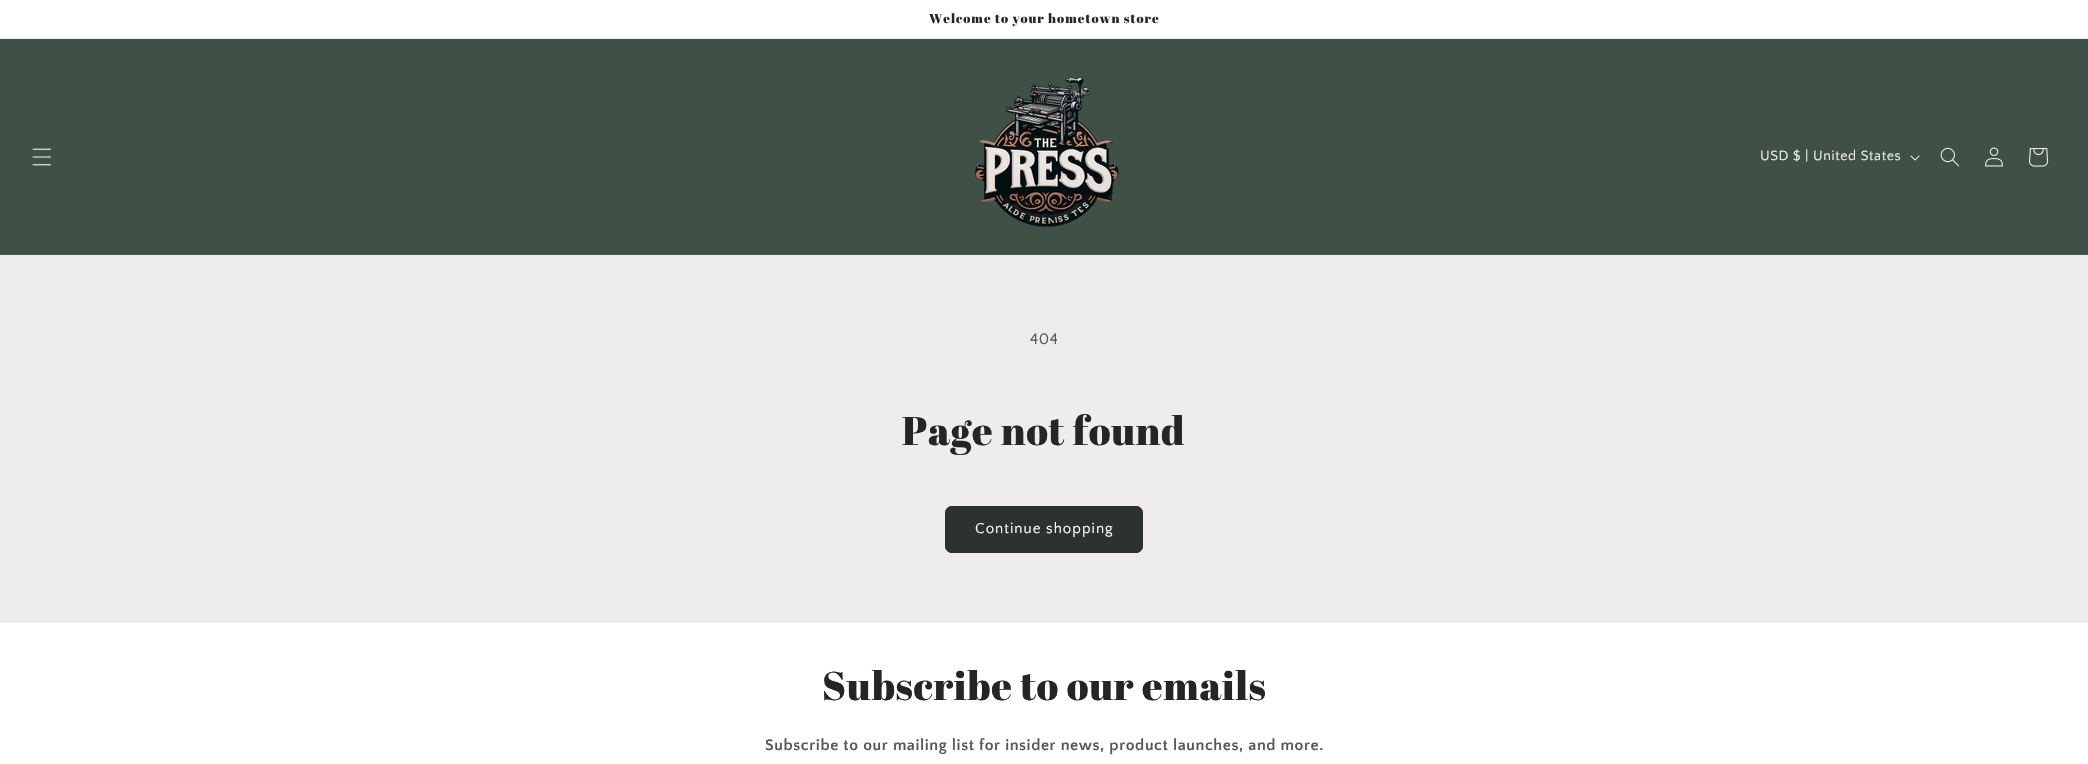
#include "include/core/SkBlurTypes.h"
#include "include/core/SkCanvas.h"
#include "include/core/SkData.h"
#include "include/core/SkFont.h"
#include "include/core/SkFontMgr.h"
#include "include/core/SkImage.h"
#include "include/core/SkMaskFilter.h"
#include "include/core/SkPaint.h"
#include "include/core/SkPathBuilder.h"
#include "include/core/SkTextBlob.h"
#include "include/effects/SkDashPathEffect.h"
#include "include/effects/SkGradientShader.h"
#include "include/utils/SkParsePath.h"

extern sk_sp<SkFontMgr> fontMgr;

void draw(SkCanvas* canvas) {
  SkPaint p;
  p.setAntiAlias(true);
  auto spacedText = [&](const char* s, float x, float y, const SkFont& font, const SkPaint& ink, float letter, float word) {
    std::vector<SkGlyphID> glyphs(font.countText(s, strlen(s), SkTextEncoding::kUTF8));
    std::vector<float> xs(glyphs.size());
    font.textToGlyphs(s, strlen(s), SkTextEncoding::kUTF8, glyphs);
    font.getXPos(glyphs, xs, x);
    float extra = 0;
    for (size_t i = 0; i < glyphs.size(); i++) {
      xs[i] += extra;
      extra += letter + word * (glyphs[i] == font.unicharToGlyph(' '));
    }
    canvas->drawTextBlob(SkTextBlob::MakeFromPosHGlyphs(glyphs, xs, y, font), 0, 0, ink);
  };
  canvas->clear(SkColorSetRGB(239, 236, 236));
  p.setColor(SK_ColorWHITE);
  canvas->drawRect(SkRect::MakeLTRB(0, 0, 2088, 38), p);
  p.setColor(SkColorSetRGB(63, 81, 71));
  canvas->drawRect(SkRect::MakeLTRB(0, 39, 2088, 254), p);
  p.setColor(SkColorSetRGB(77, 93, 84));
  canvas->drawRect(SkRect::MakeLTRB(0, 254, 2088, 255), p);
  canvas->drawImageRect(SkImages::DeferredFromEncodedData(SkData::MakeFromFileName("images/1.png")), SkRect::MakeLTRB(32, 148, 52, 166), SkSamplingOptions());
  canvas->drawImageRect(SkImages::DeferredFromEncodedData(SkData::MakeFromFileName("images/2.png")), SkRect::MakeLTRB(975, 77, 1119, 227), SkSamplingOptions());
  canvas->drawImageRect(SkImages::DeferredFromEncodedData(SkData::MakeFromFileName("images/3.png")), SkRect::MakeLTRB(1910, 155, 1920, 161), SkSamplingOptions());
  canvas->drawImageRect(SkImages::DeferredFromEncodedData(SkData::MakeFromFileName("images/4.png")), SkRect::MakeLTRB(1940, 147, 1959, 167), SkSamplingOptions());
  canvas->drawImageRect(SkImages::DeferredFromEncodedData(SkData::MakeFromFileName("images/5.png")), SkRect::MakeLTRB(1985, 147, 2003, 167), SkSamplingOptions());
  canvas->drawImageRect(SkImages::DeferredFromEncodedData(SkData::MakeFromFileName("images/6.png")), SkRect::MakeLTRB(2029, 148, 2049, 167), SkSamplingOptions());
  p.setColor(SkColorSetRGB(44, 51, 47));
  canvas->drawRoundRect(SkRect::MakeLTRB(945, 506, 1143, 553), 7, 7, p);
  p.setStyle(SkPaint::kStroke_Style);
  p.setStrokeWidth(1);
  canvas->drawRoundRect(SkRect::MakeLTRB(945.5f, 506.5f, 1142.5f, 552.5f), 6.5f, 6.5f, p);
  p.setStyle(SkPaint::kFill_Style);
  p.setColor(SK_ColorWHITE);
  canvas->drawRect(SkRect::MakeLTRB(0, 623, 2088, 764), p);
  SkFont font1(fontMgr->matchFamilyStyle("Abril Fatface", SkFontStyle::Normal()), 13);
  font1.setSubpixel(true);
  p.setColor(SkColorSetRGB(37, 37, 37));
  spacedText("Welcome to your hometown store", 929, 23, font1, p, 1, 0);
  SkFont font2(fontMgr->matchFamilyStyle("Quattrocento Sans", SkFontStyle::Normal()), 14);
  font2.setSubpixel(true);
  p.setColor(SkColorSetRGB(239, 236, 236));
  spacedText("USD $ | United States", 1760, 160, font2, p, 0.6f, 0);
  SkFont font3(fontMgr->matchFamilyStyle("Quattrocento Sans", SkFontStyle::Normal()), 16);
  font3.setSubpixel(true);
  p.setColor(SkColorSetRGB(88, 87, 87));
  spacedText("404", 1030, 344, font3, p, 0.6f, 0);
  SkFont font4(fontMgr->matchFamilyStyle("Abril Fatface", SkFontStyle::Normal()), 40);
  font4.setSubpixel(true);
  p.setColor(SkColorSetRGB(37, 37, 37));
  spacedText("Page not found", 902, 445, font4, p, 0.6f, 0);
  SkFont font5(fontMgr->matchFamilyStyle("Quattrocento Sans", SkFontStyle::Normal()), 15);
  font5.setSubpixel(true);
  p.setColor(SK_ColorWHITE);
  spacedText("Continue shopping", 975, 533, font5, p, 1, 0);
  p.setColor(SkColorSetRGB(37, 37, 37));
  spacedText("Subscribe to our emails", 822, 700, font4, p, 0.6f, 0);
  SkFont font6(fontMgr->matchFamilyStyle("Quattrocento Sans", SkFontStyle::Bold()), 16);
  font6.setSubpixel(true);
  p.setColor(SkColorSetRGB(88, 87, 87));
  spacedText("Subscribe to our mailing list for insider news, product launches, and more.", 765, 750, font6, p, 0.6f, 0);
}
